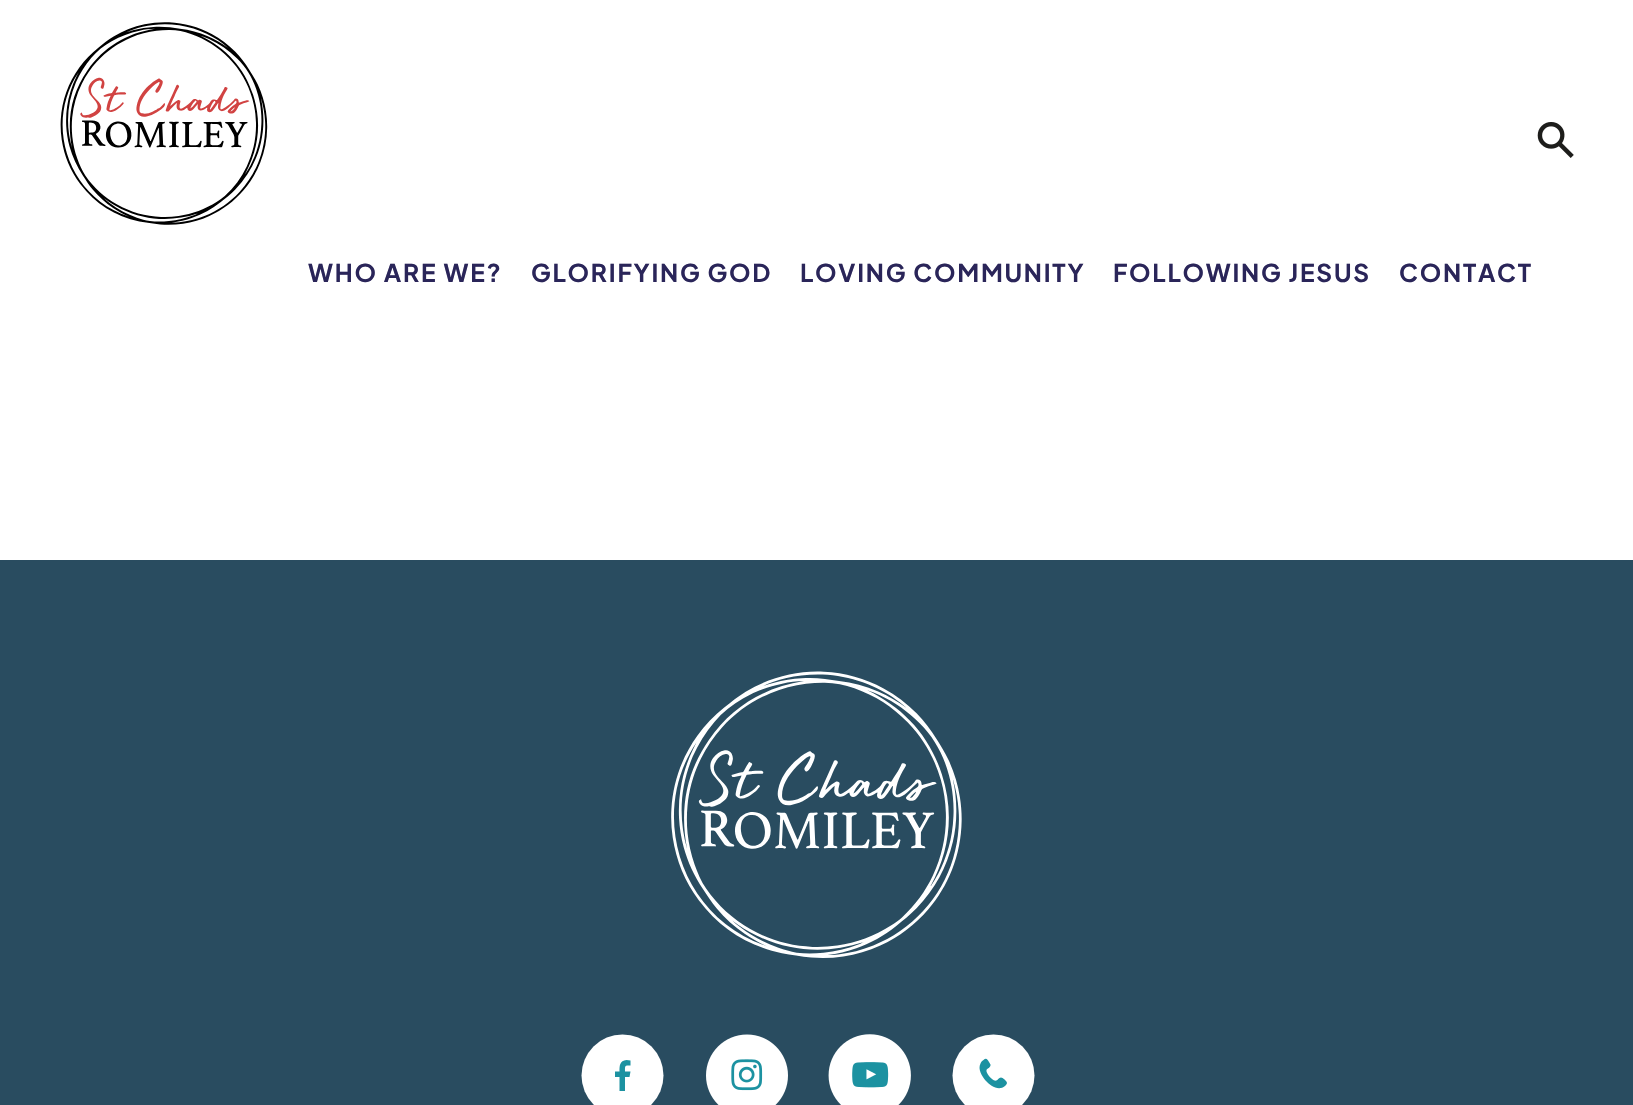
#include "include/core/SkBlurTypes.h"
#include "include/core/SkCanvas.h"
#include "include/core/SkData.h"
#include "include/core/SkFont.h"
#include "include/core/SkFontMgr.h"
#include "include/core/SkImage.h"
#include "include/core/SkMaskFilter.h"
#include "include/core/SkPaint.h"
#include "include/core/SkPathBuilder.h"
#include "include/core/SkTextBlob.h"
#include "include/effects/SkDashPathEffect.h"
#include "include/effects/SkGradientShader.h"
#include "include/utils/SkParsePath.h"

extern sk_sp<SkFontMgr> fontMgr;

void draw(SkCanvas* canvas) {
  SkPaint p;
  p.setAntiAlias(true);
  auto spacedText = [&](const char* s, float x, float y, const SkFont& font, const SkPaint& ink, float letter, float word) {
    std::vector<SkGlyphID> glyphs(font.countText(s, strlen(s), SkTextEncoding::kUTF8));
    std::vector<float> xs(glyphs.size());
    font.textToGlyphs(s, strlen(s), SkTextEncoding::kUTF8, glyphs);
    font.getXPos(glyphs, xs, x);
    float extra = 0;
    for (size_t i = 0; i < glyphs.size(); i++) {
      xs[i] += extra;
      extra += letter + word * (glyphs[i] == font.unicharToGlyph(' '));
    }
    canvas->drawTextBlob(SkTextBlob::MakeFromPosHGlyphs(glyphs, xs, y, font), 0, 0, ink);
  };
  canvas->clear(SK_ColorWHITE);
  canvas->drawImageRect(SkImages::DeferredFromEncodedData(SkData::MakeFromFileName("images/1.png")), SkRect::MakeLTRB(60, 22, 268, 225), SkSamplingOptions());
  canvas->drawImageRect(SkImages::DeferredFromEncodedData(SkData::MakeFromFileName("images/2.png")), SkRect::MakeLTRB(1537, 122, 1574, 158), SkSamplingOptions());
  p.setColor(SkColorSetRGB(41, 76, 96));
  canvas->drawRect(SkRect::MakeLTRB(0, 560, 1633, 1105), p);
  canvas->drawImageRect(SkImages::DeferredFromEncodedData(SkData::MakeFromFileName("images/3.png")), SkRect::MakeLTRB(671, 671, 962, 958), SkSamplingOptions());
  p.setColor(SK_ColorWHITE);
  canvas->drawCircle(622.5f, 1075.5f, 41, p);
  p.setColor(SkColorSetRGB(28, 146, 161));
  canvas->drawPath(SkPathBuilder().moveTo(625, 1091).lineTo(625, 1077).lineTo(629.5f, 1077).lineTo(630.5f, 1071.5f).lineTo(625, 1071.5f).cubicTo(625, 1065.5f, 624.5f, 1065.5f, 630.5f, 1065.5f).lineTo(630.5f, 1060.5f).lineTo(626.5f, 1060).cubicTo(619.5f, 1060.5f, 619.5f, 1066, 619.5f, 1071.5f).lineTo(615, 1071.5f).lineTo(615, 1077).lineTo(619.5f, 1077).lineTo(619.5f, 1091).close().detach(), p);
  canvas->drawImageRect(SkImages::DeferredFromEncodedData(SkData::MakeFromFileName("images/4.png")), SkRect::MakeLTRB(706, 1034, 788, 1105), SkSamplingOptions());
  canvas->drawImageRect(SkImages::DeferredFromEncodedData(SkData::MakeFromFileName("images/5.png")), SkRect::MakeLTRB(828, 1034, 911, 1105), SkSamplingOptions());
  p.setColor(SK_ColorWHITE);
  canvas->drawCircle(993.5f, 1075.5f, 41, p);
  p.setColor(SkColorSetRGB(28, 146, 161));
  canvas->drawPath(SkPathBuilder().moveTo(980.5f, 1063.5f).cubicTo(977.5f, 1069.5f, 982, 1076, 985.5f, 1080.5f).cubicTo(990, 1085.5f, 998.5f, 1091.5f, 1005, 1086).cubicTo(1005.5f, 1085.5f, 1007, 1084, 1007, 1083).cubicTo(1007, 1081, 1002.5f, 1077.5f, 1001, 1077.5f).cubicTo(998.5f, 1077.5f, 997.5f, 1081.5f, 994.5f, 1080.5f).cubicTo(992, 1080, 985.5f, 1073, 986.5f, 1070).cubicTo(987.5f, 1068, 991, 1067.5f, 990.5f, 1064.5f).lineTo(989, 1062).cubicTo(987.5f, 1059, 986, 1057.5f, 983.5f, 1060).cubicTo(982, 1061, 981, 1062, 980.5f, 1063.5f).close().detach(), p);
  SkFont font1(fontMgr->matchFamilyStyle("Plus Jakarta Sans", SkFontStyle::Bold()), 24.5f);
  font1.setSubpixel(true);
  p.setColor(SkColorSetRGB(42, 37, 89));
  spacedText("WHO ARE WE?", 308, 282, font1, p, 1.75f, 0);
  spacedText("GLORIFYING GOD", 531, 282, font1, p, 1.75f, 0);
  spacedText("LOVING COMMUNITY", 800, 282, font1, p, 1.75f, 0);
  spacedText("FOLLOWING JESUS", 1113, 282, font1, p, 1.75f, 0);
  spacedText("CONTACT", 1399, 282, font1, p, 1.75f, 0);
}
